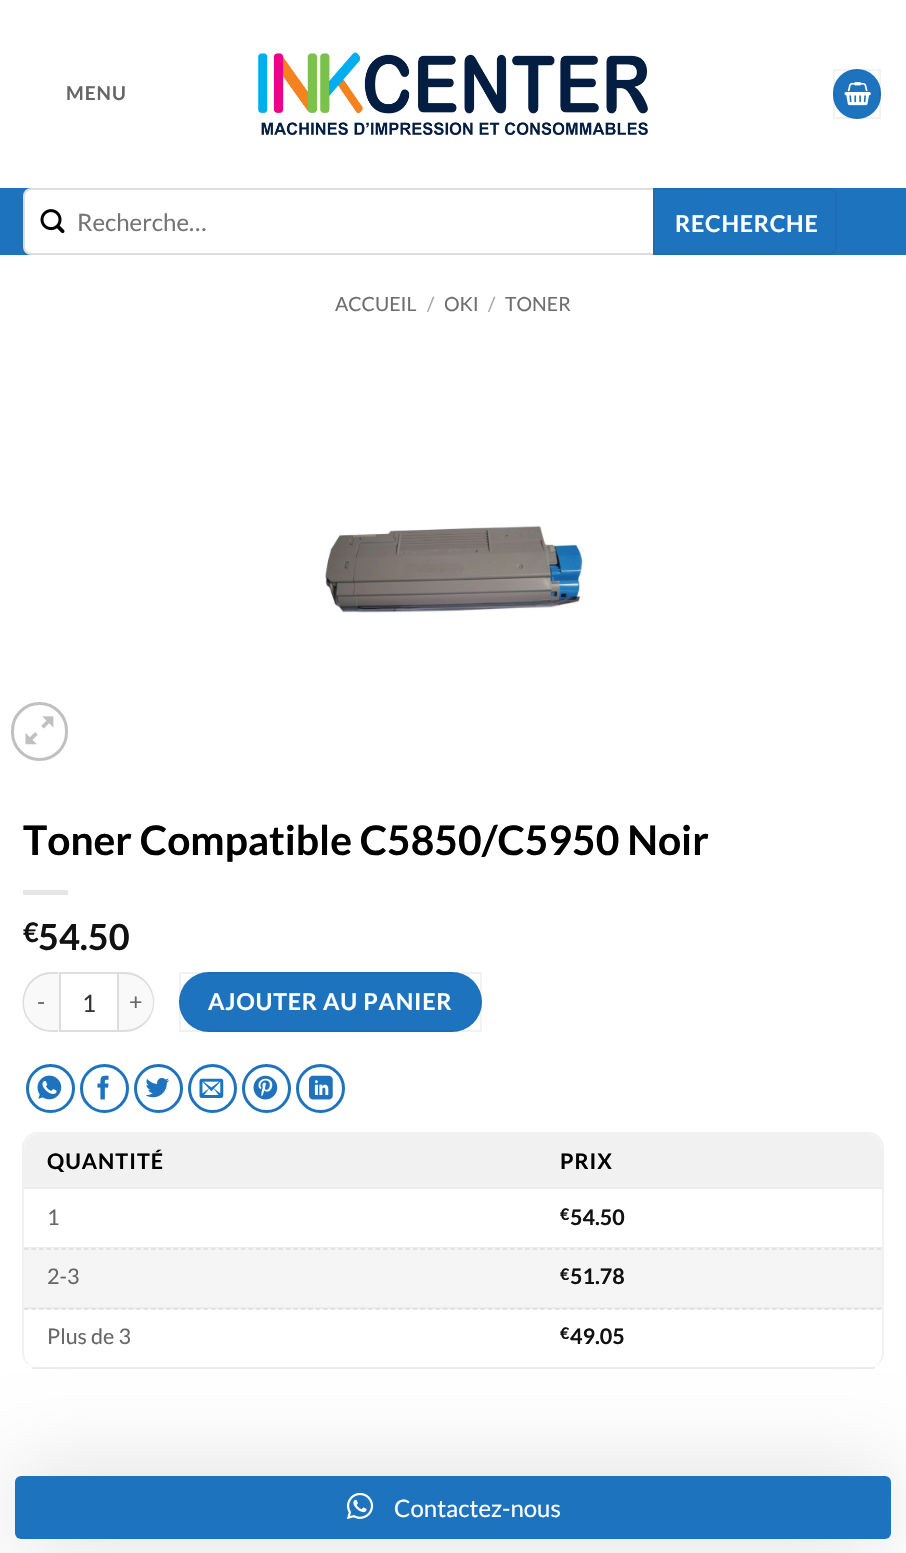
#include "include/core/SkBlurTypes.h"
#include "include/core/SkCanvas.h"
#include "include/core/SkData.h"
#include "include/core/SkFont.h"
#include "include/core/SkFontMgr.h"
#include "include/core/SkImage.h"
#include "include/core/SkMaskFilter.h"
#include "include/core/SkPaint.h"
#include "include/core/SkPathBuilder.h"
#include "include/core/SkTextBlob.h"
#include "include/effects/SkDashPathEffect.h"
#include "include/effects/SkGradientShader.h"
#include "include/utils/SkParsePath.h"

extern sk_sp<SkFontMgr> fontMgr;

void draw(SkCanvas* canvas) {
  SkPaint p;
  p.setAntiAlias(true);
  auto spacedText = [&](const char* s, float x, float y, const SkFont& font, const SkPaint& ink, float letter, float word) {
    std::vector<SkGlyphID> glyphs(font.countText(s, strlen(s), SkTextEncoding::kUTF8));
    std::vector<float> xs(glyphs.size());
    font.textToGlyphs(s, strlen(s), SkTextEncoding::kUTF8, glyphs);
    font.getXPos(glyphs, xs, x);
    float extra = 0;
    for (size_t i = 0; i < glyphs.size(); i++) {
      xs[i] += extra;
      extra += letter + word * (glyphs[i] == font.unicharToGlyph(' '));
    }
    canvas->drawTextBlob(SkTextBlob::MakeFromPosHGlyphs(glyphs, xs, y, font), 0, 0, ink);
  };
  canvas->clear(SK_ColorWHITE);
  canvas->drawImageRect(SkImages::DeferredFromEncodedData(SkData::MakeFromFileName("images/1.png")), SkRect::MakeLTRB(258, 52, 648, 135), SkSamplingOptions());
  p.setColor(SkColorSetRGB(30, 115, 190));
  canvas->drawRoundRect(SkRect::MakeLTRB(833, 69, 881, 119), 24, 24, p);
  p.setStyle(SkPaint::kStroke_Style);
  p.setStrokeWidth(2);
  p.setColor(SkColorSetARGB(13, 0, 0, 0));
  canvas->drawRect(SkRect::MakeLTRB(834, 70, 880, 118), p);
  canvas->drawImageRect(SkImages::DeferredFromEncodedData(SkData::MakeFromFileName("images/2.png")), SkRect::MakeLTRB(844, 82, 871, 106), SkSamplingOptions());
  p.setStyle(SkPaint::kFill_Style);
  p.setColor(SkColorSetRGB(30, 115, 190));
  canvas->drawRect(SkRect::MakeLTRB(0, 188, 906, 255), p);
  p.setColor(SK_ColorWHITE);
  canvas->drawPath(SkPathBuilder().moveTo(31, 189).lineTo(655, 189).lineTo(655, 254).lineTo(31, 254).cubicTo(27, 254, 24, 251, 24, 247).lineTo(24, 196).cubicTo(24, 192, 27, 189, 31, 189).close().detach(), p);
  p.setStyle(SkPaint::kStroke_Style);
  p.setColor(SkColorSetRGB(221, 221, 221));
  canvas->drawPath(SkPathBuilder().moveTo(31, 189).lineTo(655, 189).lineTo(655, 254).lineTo(31, 254).cubicTo(27, 254, 24, 251, 24, 247).lineTo(24, 196).cubicTo(24, 192, 27, 189, 31, 189).close().detach(), p);
  canvas->drawImageRect(SkImages::DeferredFromEncodedData(SkData::MakeFromFileName("images/3.png")), SkRect::MakeLTRB(40, 209, 65, 234), SkSamplingOptions());
  p.setStyle(SkPaint::kFill_Style);
  p.setColor(SkColorSetRGB(30, 115, 190));
  canvas->drawPath(SkPathBuilder().moveTo(654, 189).lineTo(829, 189).cubicTo(833, 189, 836, 192, 836, 196).lineTo(836, 247).cubicTo(836, 251, 833, 254, 829, 254).lineTo(654, 254).close().detach(), p);
  p.setStyle(SkPaint::kStroke_Style);
  p.setColor(SkColorSetRGB(29, 109, 181));
  canvas->drawPath(SkPathBuilder().moveTo(654, 189).lineTo(829, 189).cubicTo(833, 189, 836, 192, 836, 196).lineTo(836, 247).cubicTo(836, 251, 833, 254, 829, 254).lineTo(654, 254).close().detach(), p);
  canvas->drawImageRect(SkImages::DeferredFromEncodedData(SkData::MakeFromFileName("images/4.png")), SkRect::MakeLTRB(325, 525, 584, 614), SkSamplingOptions());
  p.setStrokeWidth(3);
  p.setColor(SkColorSetRGB(192, 192, 192));
  canvas->drawRoundRect(SkRect::MakeLTRB(12.5f, 703.5f, 66.5f, 759.5f), 27, 27, p);
  canvas->drawImageRect(SkImages::DeferredFromEncodedData(SkData::MakeFromFileName("images/5.png")), SkRect::MakeLTRB(25, 716, 54, 745), SkSamplingOptions());
  p.setStyle(SkPaint::kFill_Style);
  p.setColor(SkColorSetRGB(230, 230, 230));
  canvas->drawRect(SkRect::MakeLTRB(23, 890, 68, 895), p);
  p.setColor(SkColorSetRGB(249, 249, 249));
  canvas->drawPath(SkPathBuilder().moveTo(53, 972).lineTo(59, 972).lineTo(59, 1032).lineTo(53, 1032).cubicTo(36.5f, 1032, 23, 1018.5f, 23, 1002).cubicTo(23, 985.5f, 36.5f, 972, 53, 972).close().detach(), p);
  p.setColor(SkColorSetRGB(221, 221, 221));
  canvas->drawPath(SkPathBuilder(SkPathFillType::kEvenOdd).moveTo(52, 972).lineTo(58, 972).lineTo(58, 1032).cubicTo(52, 1032, 47, 1032, 41, 1030).cubicTo(11, 1017, 20, 972, 52, 972).close().moveTo(52, 974).lineTo(58, 974).lineTo(58, 1030).cubicTo(53, 1030, 47, 1031, 41, 1028).cubicTo(13, 1016, 22, 974, 52, 974).close().detach(), p);
  p.setStyle(SkPaint::kStroke_Style);
  p.setStrokeWidth(2);
  canvas->drawRect(SkRect::MakeLTRB(60, 973, 118, 1031), p);
  p.setStyle(SkPaint::kFill_Style);
  p.setColor(SkColorSetRGB(249, 249, 249));
  canvas->drawPath(SkPathBuilder().moveTo(119, 972).lineTo(125, 972).cubicTo(141.5f, 972, 155, 985.5f, 155, 1002).cubicTo(155, 1018.5f, 141.5f, 1032, 125, 1032).lineTo(119, 1032).close().detach(), p);
  p.setColor(SkColorSetRGB(221, 221, 221));
  canvas->drawPath(SkPathBuilder(SkPathFillType::kEvenOdd).moveTo(118, 972).lineTo(124, 972).cubicTo(141, 972, 154, 985, 154, 1002).cubicTo(154, 1019, 141, 1032, 124, 1032).lineTo(118, 1032).close().moveTo(118, 974).lineTo(124, 974).cubicTo(140, 974, 153, 986, 153, 1002).cubicTo(153, 1018, 140, 1030, 124, 1030).lineTo(118, 1030).close().detach(), p);
  p.setColor(SkColorSetRGB(30, 115, 190));
  canvas->drawRoundRect(SkRect::MakeLTRB(179, 972, 482, 1032), 30, 30, p);
  p.setStyle(SkPaint::kStroke_Style);
  p.setColor(SkColorSetARGB(13, 0, 0, 0));
  canvas->drawRect(SkRect::MakeLTRB(180, 973, 481, 1031), p);
  p.setStrokeWidth(3);
  p.setColor(SkColorSetRGB(30, 115, 190));
  canvas->drawCircle(50.5f, 1088.5f, 23, p);
  canvas->drawImageRect(SkImages::DeferredFromEncodedData(SkData::MakeFromFileName("images/6.png")), SkRect::MakeLTRB(37, 1075, 62, 1100), SkSamplingOptions());
  canvas->drawCircle(104.5f, 1088.5f, 23, p);
  canvas->drawImageRect(SkImages::DeferredFromEncodedData(SkData::MakeFromFileName("images/7.png")), SkRect::MakeLTRB(97, 1075, 109, 1100), SkSamplingOptions());
  canvas->drawCircle(158.5f, 1088.5f, 23, p);
  canvas->drawImageRect(SkImages::DeferredFromEncodedData(SkData::MakeFromFileName("images/8.png")), SkRect::MakeLTRB(145, 1078, 170, 1098), SkSamplingOptions());
  canvas->drawCircle(212.5f, 1088.5f, 23, p);
  canvas->drawImageRect(SkImages::DeferredFromEncodedData(SkData::MakeFromFileName("images/9.png")), SkRect::MakeLTRB(199, 1078, 224, 1098), SkSamplingOptions());
  canvas->drawCircle(266.5f, 1088.5f, 23, p);
  canvas->drawImageRect(SkImages::DeferredFromEncodedData(SkData::MakeFromFileName("images/10.png")), SkRect::MakeLTRB(253, 1075, 278, 1100), SkSamplingOptions());
  canvas->drawCircle(320.5f, 1088.5f, 23, p);
  canvas->drawImageRect(SkImages::DeferredFromEncodedData(SkData::MakeFromFileName("images/11.png")), SkRect::MakeLTRB(309, 1075, 333, 1100), SkSamplingOptions());
  p.setStyle(SkPaint::kFill_Style);
  p.setColor(SkColorSetRGB(241, 241, 241));
  canvas->drawPath(SkPathBuilder(SkPathFillType::kEvenOdd).moveTo(38, 1132).lineTo(868, 1132).cubicTo(877, 1132, 884, 1139, 884, 1148).lineTo(884, 1353).cubicTo(884, 1361, 877, 1368, 868, 1368).lineTo(38, 1368).cubicTo(29, 1368, 22, 1361, 22, 1353).lineTo(22, 1148).cubicTo(22, 1139, 29, 1132, 38, 1132).close().moveTo(38, 1134).lineTo(868, 1134).cubicTo(876, 1134, 882, 1140, 882, 1148).lineTo(882, 1353).cubicTo(882, 1361, 876, 1368, 868, 1368).lineTo(38, 1368).cubicTo(30, 1368, 24, 1361, 24, 1353).lineTo(24, 1148).cubicTo(24, 1140, 30, 1134, 38, 1134).close().detach(), p);
  canvas->drawPath(SkPathBuilder().moveTo(39, 1134).lineTo(537, 1134).lineTo(537, 1188).lineTo(24, 1188).lineTo(24, 1149).cubicTo(24, 1140.5f, 30.5f, 1134, 39, 1134).close().detach(), p);
  p.setColor(SkColorSetRGB(236, 236, 236));
  canvas->drawRect(SkRect::MakeLTRB(24, 1187, 537, 1189), p);
  p.setColor(SkColorSetRGB(241, 241, 241));
  canvas->drawPath(SkPathBuilder().moveTo(537, 1134).lineTo(867, 1134).cubicTo(875.5f, 1134, 882, 1140.5f, 882, 1149).lineTo(882, 1188).lineTo(537, 1188).close().detach(), p);
  p.setColor(SkColorSetRGB(236, 236, 236));
  canvas->drawRect(SkRect::MakeLTRB(537, 1187, 882, 1189), p);
  canvas->drawRect(SkRect::MakeLTRB(24, 1247, 882, 1248), p);
  p.setColor(SkColorSetRGB(245, 245, 245));
  canvas->drawRect(SkRect::MakeLTRB(24, 1248, 882, 1307), p);
  p.setStyle(SkPaint::kStroke_Style);
  p.setStrokeWidth(1.5f);
  p.setColor(SkColorSetRGB(221, 221, 221));
  p.setPathEffect(SkDashPathEffect::Make({{4.5f, 2.98f}}, 0));
  canvas->drawPath(SkPathBuilder().moveTo(24, 1249).lineTo(882, 1249).detach(), p);
  p.setPathEffect(nullptr);
  p.setStyle(SkPaint::kFill_Style);
  p.setColor(SkColorSetRGB(236, 236, 236));
  canvas->drawRect(SkRect::MakeLTRB(24, 1307, 882, 1309), p);
  p.setStyle(SkPaint::kStroke_Style);
  p.setColor(SkColorSetRGB(221, 221, 221));
  p.setPathEffect(SkDashPathEffect::Make({{4.5f, 2.98f}}, 0));
  canvas->drawPath(SkPathBuilder().moveTo(24, 1309).lineTo(882, 1309).detach(), p);
  p.setPathEffect(nullptr);
  p.setStyle(SkPaint::kFill_Style);
  p.setColor(SkColorSetRGB(236, 236, 236));
  canvas->drawRect(SkRect::MakeLTRB(32, 1367, 875, 1369), p);
  p.setColor(SkColorSetARGB(38, 0, 0, 0));
  p.setMaskFilter(SkMaskFilter::MakeBlur(kNormal_SkBlurStyle, 45));
  canvas->drawRoundRect(SkRect::MakeLTRB(15, 1476, 891, 1539), 6, 6, p);
  p.setMaskFilter(nullptr);
  p.setColor(SkColorSetRGB(30, 115, 190));
  canvas->drawRoundRect(SkRect::MakeLTRB(15, 1476, 891, 1539), 6, 6, p);
  canvas->drawImageRect(SkImages::DeferredFromEncodedData(SkData::MakeFromFileName("images/12.png")), SkRect::MakeLTRB(347, 1492, 374, 1519), SkSamplingOptions());
  SkFont font1(fontMgr->matchFamilyStyle("Lato", SkFontStyle::Bold()), 19);
  font1.setSubpixel(true);
  p.setColor(SkColorSetRGB(102, 102, 102));
  spacedText("MENU", 66, 100, font1, p, 1, 0);
  SkFont font2(fontMgr->matchFamilyStyle("Lato", SkFontStyle::Normal()), 24);
  font2.setSubpixel(true);
  p.setColor(SkColorSetRGB(117, 117, 117));
  canvas->drawString("Recherche…", 77, 231, font2, p);
  SkFont font3(fontMgr->matchFamilyStyle("Lato", SkFontStyle::Bold()), 23.25f);
  font3.setSubpixel(true);
  p.setColor(SK_ColorWHITE);
  spacedText("RECHERCHE", 675, 232, font3, p, 0.75f, 0);
  SkFont font4(fontMgr->matchFamilyStyle("Lato", SkFontStyle::Normal()), 19.5f);
  font4.setSubpixel(true);
  p.setColor(SkColorSetRGB(110, 110, 110));
  canvas->drawString("ACCUEIL", 335, 311, font4, p);
  p.setColor(SkColorSetRGB(166, 166, 166));
  canvas->drawString("/", 427, 311, font4, p);
  p.setColor(SkColorSetRGB(110, 110, 110));
  canvas->drawString("OKI", 444, 311, font4, p);
  p.setColor(SkColorSetRGB(166, 166, 166));
  canvas->drawString("/", 488, 311, font4, p);
  p.setColor(SkColorSetRGB(110, 110, 110));
  canvas->drawString("TONER", 505, 311, font4, p);
  SkFont font5(fontMgr->matchFamilyStyle("Lato", SkFontStyle::Bold()), 40.75f);
  font5.setSubpixel(true);
  p.setColor(SK_ColorBLACK);
  canvas->drawString("Toner Compatible C5850/C5950 Noir", 23, 855, font5, p);
  SkFont font6(fontMgr->matchFamilyStyle("Lato", SkFontStyle::Bold()), 27);
  font6.setSubpixel(true);
  p.setColor(SkColorSetRGB(17, 17, 17));
  canvas->drawString("€", 23, 942, font6, p);
  SkFont font7(fontMgr->matchFamilyStyle("Lato", SkFontStyle::Bold()), 36);
  font7.setSubpixel(true);
  canvas->drawString("54.50", 38, 950, font7, p);
  SkFont font8(fontMgr->matchFamilyStyle("Lato", SkFontStyle::Normal()), 23.25f);
  font8.setSubpixel(true);
  p.setColor(SkColorSetRGB(102, 102, 102));
  spacedText("-", 37, 1010, font8, p, 0.75f, 0);
  p.setColor(SkColorSetRGB(51, 51, 51));
  canvas->drawString("1", 82, 1012, font2, p);
  p.setColor(SkColorSetRGB(102, 102, 102));
  spacedText("+", 129, 1010, font8, p, 0.75f, 0);
  p.setColor(SK_ColorWHITE);
  spacedText("AJOUTER AU PANIER", 208, 1010, font3, p, 0.75f, 0);
  SkFont font9(fontMgr->matchFamilyStyle("Lato", SkFontStyle::Bold()), 21.5f);
  font9.setSubpixel(true);
  p.setColor(SK_ColorBLACK);
  spacedText("QUANTITÉ", 47, 1169, font9, p, 1, 0);
  spacedText("PRIX", 560, 1169, font9, p, 1, 0);
  SkFont font10(fontMgr->matchFamilyStyle("Lato", SkFontStyle::Normal()), 21.5f);
  font10.setSubpixel(true);
  p.setColor(SkColorSetRGB(102, 102, 102));
  canvas->drawString("1", 47, 1225, font10, p);
  SkFont font11(fontMgr->matchFamilyStyle("Lato", SkFontStyle::Bold()), 16);
  font11.setSubpixel(true);
  p.setColor(SkColorSetRGB(17, 17, 17));
  canvas->drawString("€", 560, 1220, font11, p);
  canvas->drawString("54.50", 570, 1225, font9, p);
  p.setColor(SkColorSetRGB(102, 102, 102));
  canvas->drawString("2-3", 47, 1284, font10, p);
  p.setColor(SkColorSetRGB(17, 17, 17));
  canvas->drawString("€", 560, 1280, font11, p);
  canvas->drawString("51.78", 570, 1284, font9, p);
  p.setColor(SkColorSetRGB(102, 102, 102));
  canvas->drawString("Plus de 3", 47, 1344, font10, p);
  p.setColor(SkColorSetRGB(17, 17, 17));
  canvas->drawString("€", 560, 1339, font11, p);
  canvas->drawString("49.05", 570, 1344, font9, p);
  p.setColor(SK_ColorWHITE);
  canvas->drawString("Contactez-nous", 394, 1517, font2, p);
}
